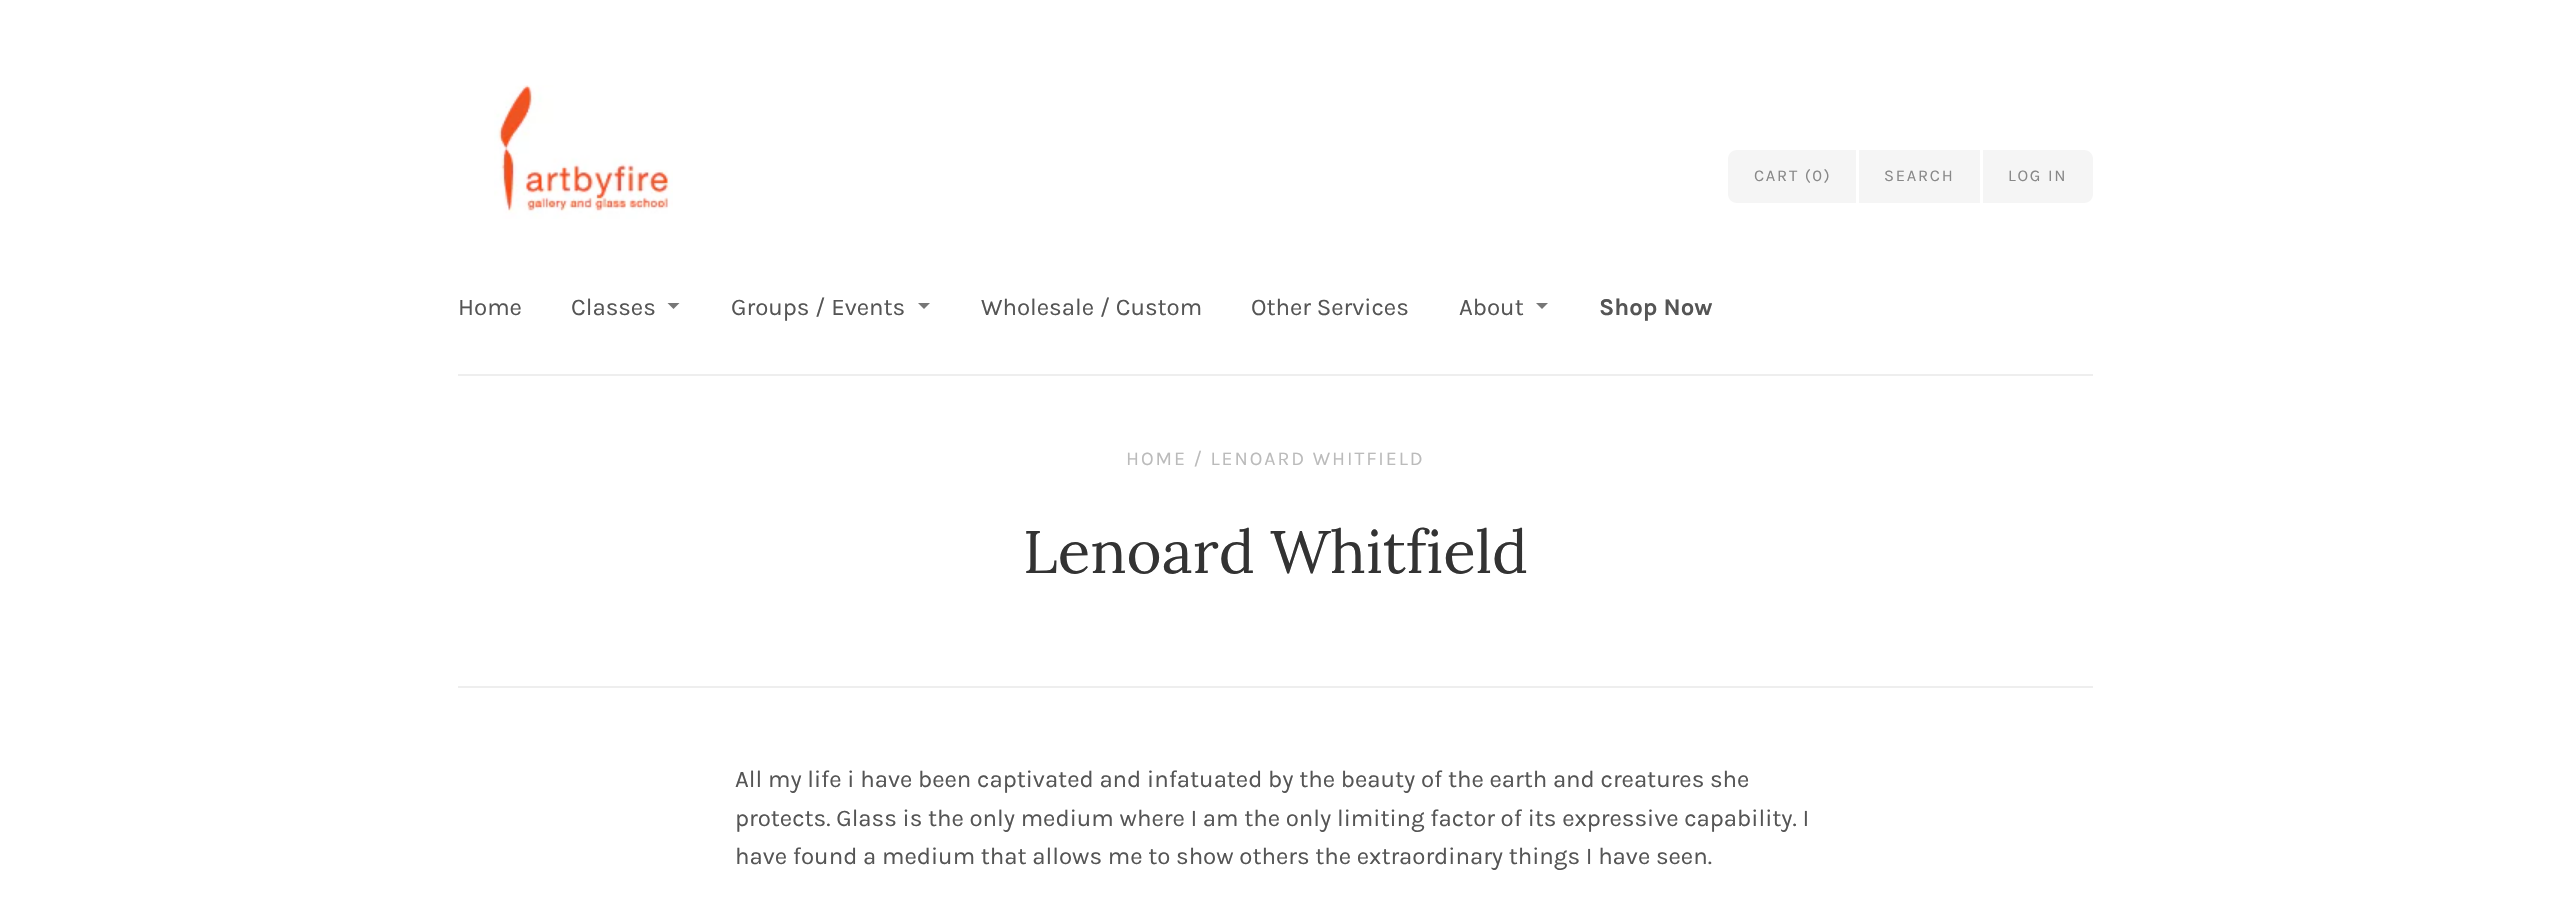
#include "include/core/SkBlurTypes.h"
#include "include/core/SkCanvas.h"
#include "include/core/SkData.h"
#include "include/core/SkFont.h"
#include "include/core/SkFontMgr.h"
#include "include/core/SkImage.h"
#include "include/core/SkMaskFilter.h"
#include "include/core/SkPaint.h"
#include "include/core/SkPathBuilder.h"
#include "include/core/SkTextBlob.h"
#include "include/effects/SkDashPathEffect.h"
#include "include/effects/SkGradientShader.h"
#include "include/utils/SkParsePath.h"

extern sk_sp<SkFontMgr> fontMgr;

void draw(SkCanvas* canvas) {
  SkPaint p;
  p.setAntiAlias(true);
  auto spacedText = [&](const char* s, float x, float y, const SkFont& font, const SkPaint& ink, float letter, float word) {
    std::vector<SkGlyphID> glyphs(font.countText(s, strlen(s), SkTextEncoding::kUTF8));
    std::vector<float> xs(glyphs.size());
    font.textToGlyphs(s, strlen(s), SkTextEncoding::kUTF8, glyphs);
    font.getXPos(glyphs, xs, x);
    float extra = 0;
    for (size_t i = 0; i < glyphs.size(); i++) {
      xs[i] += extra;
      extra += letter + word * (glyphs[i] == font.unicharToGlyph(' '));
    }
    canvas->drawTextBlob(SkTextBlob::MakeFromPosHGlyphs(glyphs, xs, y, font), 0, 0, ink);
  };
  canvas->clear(SK_ColorWHITE);
  p.setColor(SkColorSetRGB(238, 238, 238));
  canvas->drawRect(SkRect::MakeLTRB(458, 374, 2093, 376), p);
  canvas->drawImageRect(SkImages::DeferredFromEncodedData(SkData::MakeFromFileName("images/1.png")), SkRect::MakeLTRB(494, 85, 673, 219), SkSamplingOptions());
  p.setColor(SkColorSetRGB(245, 245, 245));
  canvas->drawPath(SkPathBuilder().moveTo(1737, 150).lineTo(1856, 150).lineTo(1856, 203).lineTo(1737, 203).cubicTo(1732, 203, 1728, 199, 1728, 194).lineTo(1728, 159).cubicTo(1728, 154, 1732, 150, 1737, 150).close().detach(), p);
  canvas->drawRect(SkRect::MakeLTRB(1859, 150, 1980, 203), p);
  canvas->drawPath(SkPathBuilder().moveTo(1983, 150).lineTo(2084, 150).cubicTo(2089, 150, 2093, 154, 2093, 159).lineTo(2093, 194).cubicTo(2093, 199, 2089, 203, 2084, 203).lineTo(1983, 203).close().detach(), p);
  p.setColor(SkColorSetRGB(119, 119, 119));
  canvas->drawPath(SkPathBuilder().moveTo(673.5f, 309).lineTo(667.5f, 303).lineTo(679.5f, 303).close().detach(), p);
  canvas->drawPath(SkPathBuilder().moveTo(924, 309).lineTo(918, 303).lineTo(930, 303).close().detach(), p);
  canvas->drawPath(SkPathBuilder().moveTo(1542, 309).lineTo(1536, 303).lineTo(1548, 303).close().detach(), p);
  p.setColor(SkColorSetRGB(238, 238, 238));
  canvas->drawRect(SkRect::MakeLTRB(458, 686, 2093, 688), p);
  SkFont font1(fontMgr->matchFamilyStyle("Karla", SkFontStyle::Normal()), 16.5f);
  font1.setSubpixel(true);
  p.setColor(SkColorSetRGB(136, 136, 136));
  spacedText("CART (0)", 1754, 181, font1, p, 1.75f, 0);
  spacedText("SEARCH", 1884, 181, font1, p, 1.75f, 0);
  spacedText("LOG IN", 2008, 181, font1, p, 1.75f, 0);
  SkFont font2(fontMgr->matchFamilyStyle("Karla", SkFontStyle::Normal()), 24);
  font2.setSubpixel(true);
  p.setColor(SkColorSetRGB(85, 85, 85));
  canvas->drawString("Home", 458, 315, font2, p);
  canvas->drawString("Classes", 571, 315, font2, p);
  canvas->drawString("Groups / Events", 731, 315, font2, p);
  canvas->drawString("Wholesale / Custom", 981, 315, font2, p);
  canvas->drawString("Other Services", 1251, 315, font2, p);
  canvas->drawString("About", 1459, 315, font2, p);
  SkFont font3(fontMgr->matchFamilyStyle("Karla", SkFontStyle::Bold()), 24);
  font3.setSubpixel(true);
  canvas->drawString("Shop Now", 1599, 315, font3, p);
  SkFont font4(fontMgr->matchFamilyStyle("Karla", SkFontStyle::Normal()), 19.5f);
  font4.setSubpixel(true);
  p.setColor(SkColorSetRGB(187, 187, 187));
  spacedText("HOME / LENOARD WHITFIELD", 1126, 465, font4, p, 1.95f, 0);
  SkFont font5(fontMgr->matchFamilyStyle("Lora", SkFontStyle::Normal()), 60);
  font5.setSubpixel(true);
  p.setColor(SkColorSetRGB(51, 51, 51));
  canvas->drawString("Lenoard Whitfield", 1023, 573, font5, p);
  p.setColor(SkColorSetRGB(85, 85, 85));
  canvas->drawString("All my life i have been captivated and infatuated by the beauty of the earth and creatures she", 735, 787, font2, p);
  canvas->drawString("protects. Glass is the only medium where I am the only limiting factor of its expressive capability. I", 735, 826, font2, p);
  canvas->drawString("have found a medium that allows me to show others the extraordinary things I have seen.", 735, 864, font2, p);
}
